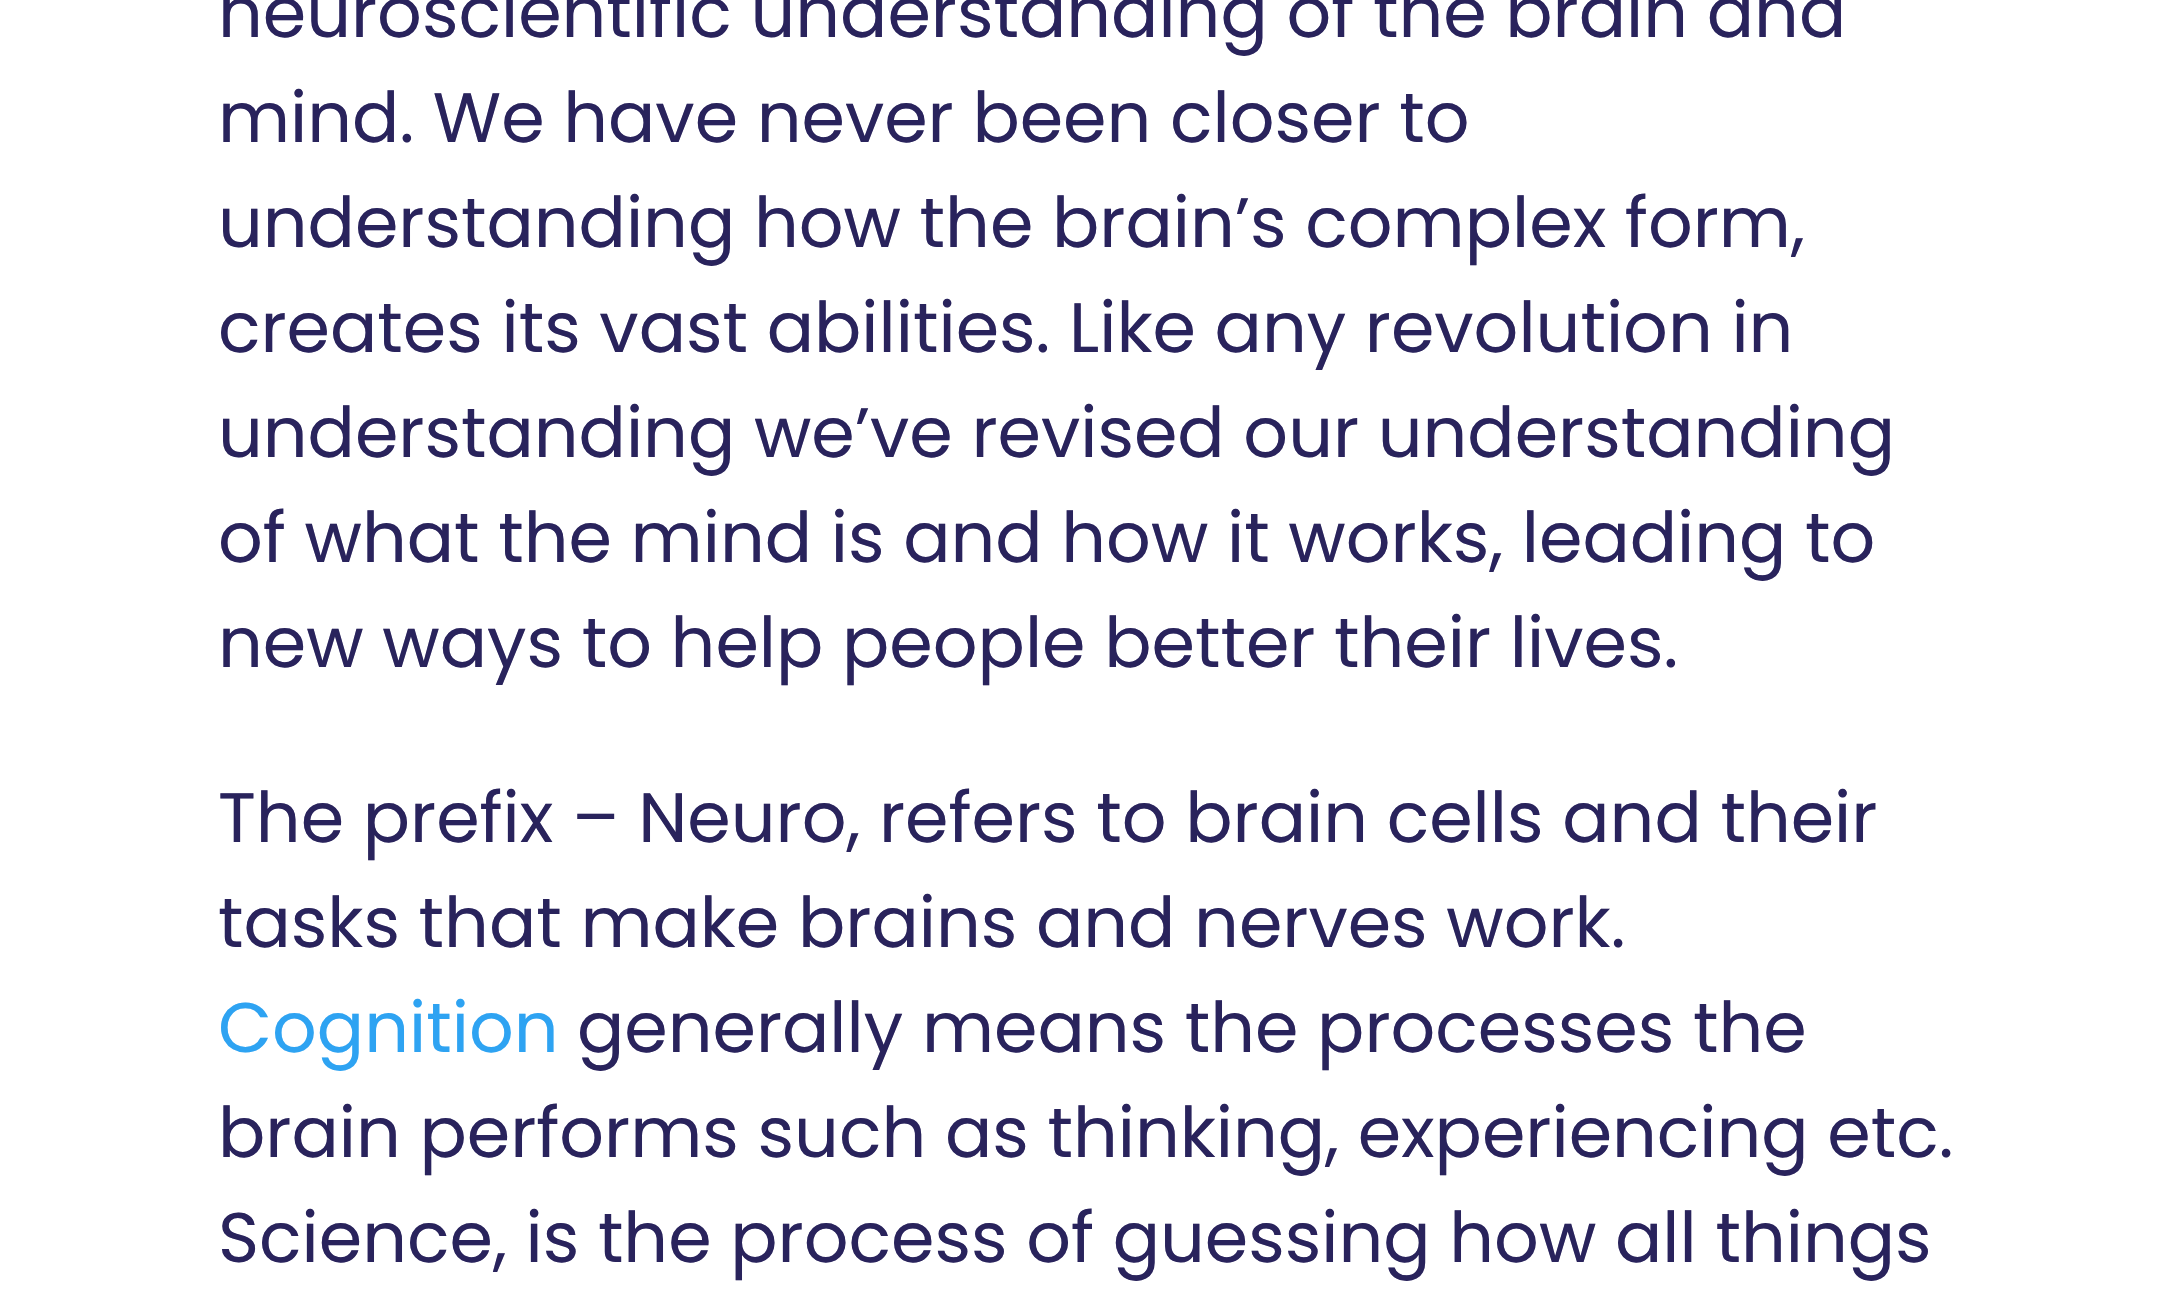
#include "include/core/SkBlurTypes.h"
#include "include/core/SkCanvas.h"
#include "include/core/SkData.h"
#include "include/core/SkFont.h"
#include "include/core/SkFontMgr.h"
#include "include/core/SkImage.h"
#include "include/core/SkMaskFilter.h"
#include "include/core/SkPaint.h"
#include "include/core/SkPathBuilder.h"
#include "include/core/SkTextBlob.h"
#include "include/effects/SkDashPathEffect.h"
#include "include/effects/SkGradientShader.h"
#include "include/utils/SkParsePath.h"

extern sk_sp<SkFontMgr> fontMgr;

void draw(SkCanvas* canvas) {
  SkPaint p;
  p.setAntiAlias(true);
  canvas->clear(SK_ColorWHITE);
  SkFont font1(fontMgr->matchFamilyStyle("Poppins", SkFontStyle::Normal()), 70);
  font1.setSubpixel(true);
  p.setColor(SkColorSetRGB(41, 35, 92));
  canvas->drawString("neuroscientific understanding of the brain and", 218, 37, font1, p);
  canvas->drawString("mind. We have never been closer to", 218, 142, font1, p);
  canvas->drawString("understanding how the brain’s complex form,", 218, 247, font1, p);
  canvas->drawString("creates its vast abilities. Like any revolution in", 218, 352, font1, p);
  canvas->drawString("understanding we’ve revised our understanding", 218, 457, font1, p);
  canvas->drawString("of what the mind is and how it works, leading to", 218, 562, font1, p);
  canvas->drawString("new ways to help people better their lives.", 218, 667, font1, p);
  canvas->drawString("The prefix – Neuro, refers to brain cells and their", 218, 842, font1, p);
  canvas->drawString("tasks that make brains and nerves work.", 218, 947, font1, p);
  p.setColor(SkColorSetRGB(46, 163, 242));
  canvas->drawString("Cognition", 218, 1052, font1, p);
  p.setColor(SkColorSetRGB(41, 35, 92));
  canvas->drawString("generally means the processes the", 577, 1052, font1, p);
  canvas->drawString("brain performs such as thinking, experiencing etc.", 218, 1157, font1, p);
  canvas->drawString("Science, is the process of guessing how all things", 218, 1262, font1, p);
}
